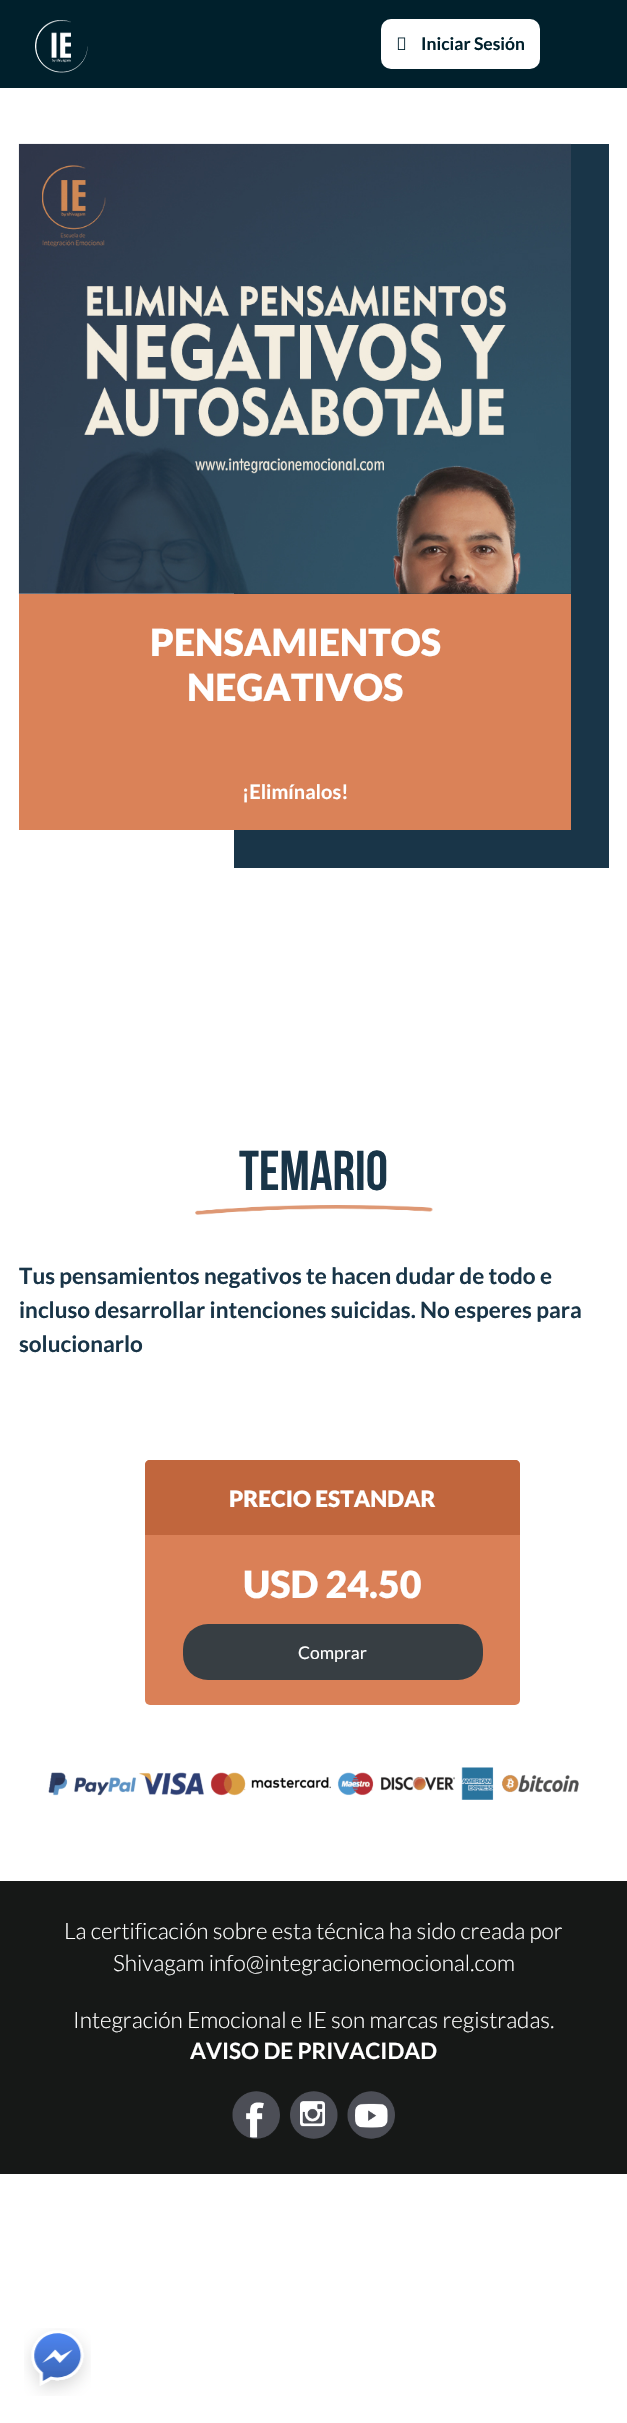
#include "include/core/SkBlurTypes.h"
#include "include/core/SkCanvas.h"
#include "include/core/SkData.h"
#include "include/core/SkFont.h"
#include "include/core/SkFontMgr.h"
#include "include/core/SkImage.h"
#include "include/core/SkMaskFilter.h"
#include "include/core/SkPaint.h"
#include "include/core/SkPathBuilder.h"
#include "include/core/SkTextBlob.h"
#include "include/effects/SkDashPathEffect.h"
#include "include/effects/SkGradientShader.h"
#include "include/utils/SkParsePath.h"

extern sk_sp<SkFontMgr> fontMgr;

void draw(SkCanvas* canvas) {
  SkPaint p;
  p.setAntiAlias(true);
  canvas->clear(SK_ColorWHITE);
  p.setColor(SkColorSetRGB(0, 32, 44));
  canvas->drawRect(SkRect::MakeLTRB(0, 0, 627, 88), p);
  canvas->drawImageRect(SkImages::DeferredFromEncodedData(SkData::MakeFromFileName("images/1.png")), SkRect::MakeLTRB(35, 20, 88, 73), SkSamplingOptions());
  p.setColor(SK_ColorWHITE);
  canvas->drawRoundRect(SkRect::MakeLTRB(381, 19, 540, 69), 10, 10, p);
  canvas->drawImageRect(SkImages::DeferredFromEncodedData(SkData::MakeFromFileName("images/2.png")), SkRect::MakeLTRB(397, 37, 406, 50), SkSamplingOptions());
  p.setColor(SkColorSetRGB(25, 53, 72));
  canvas->drawRect(SkRect::MakeLTRB(234, 144, 609, 868), p);
  canvas->drawImageRect(SkImages::DeferredFromEncodedData(SkData::MakeFromFileName("images/3.png")), SkRect::MakeLTRB(18, 143, 571, 594), SkSamplingOptions());
  p.setColor(SkColorSetRGB(218, 130, 88));
  canvas->drawRect(SkRect::MakeLTRB(19, 594, 571, 830), p);
  canvas->drawImageRect(SkImages::DeferredFromEncodedData(SkData::MakeFromFileName("images/4.png")), SkRect::MakeLTRB(195, 1205, 433, 1215), SkSamplingOptions());
  p.setColor(SkColorSetRGB(218, 128, 87));
  canvas->drawRoundRect(SkRect::MakeLTRB(145, 1460, 520, 1705), 5, 5, p);
  p.setColor(SkColorSetRGB(193, 102, 61));
  canvas->drawPath(SkPathBuilder().moveTo(150, 1460).lineTo(515, 1460).cubicTo(518, 1460, 520, 1462, 520, 1465).lineTo(520, 1535).lineTo(145, 1535).lineTo(145, 1465).cubicTo(145, 1462, 147, 1460, 150, 1460).close().detach(), p);
  p.setColor(SkColorSetRGB(55, 62, 67));
  canvas->drawRoundRect(SkRect::MakeLTRB(183, 1624, 483, 1680), 25, 25, p);
  canvas->drawImageRect(SkImages::DeferredFromEncodedData(SkData::MakeFromFileName("images/5.png")), SkRect::MakeLTRB(48, 1767, 579, 1800), SkSamplingOptions());
  p.setColor(SkColorSetRGB(22, 24, 23));
  canvas->drawRect(SkRect::MakeLTRB(0, 1881, 627, 2174), p);
  canvas->drawImageRect(SkImages::DeferredFromEncodedData(SkData::MakeFromFileName("images/6.png")), SkRect::MakeLTRB(232, 2091, 280, 2139), SkSamplingOptions());
  canvas->drawImageRect(SkImages::DeferredFromEncodedData(SkData::MakeFromFileName("images/7.png")), SkRect::MakeLTRB(290, 2091, 338, 2139), SkSamplingOptions());
  canvas->drawImageRect(SkImages::DeferredFromEncodedData(SkData::MakeFromFileName("images/8.png")), SkRect::MakeLTRB(347, 2091, 395, 2139), SkSamplingOptions());
  canvas->drawImageRect(SkImages::DeferredFromEncodedData(SkData::MakeFromFileName("images/9.png")), SkRect::MakeLTRB(24, 2328, 91, 2396), SkSamplingOptions());
  SkFont font1(fontMgr->matchFamilyStyle("Lato", SkFontStyle::Bold()), 17.5f);
  font1.setSubpixel(true);
  p.setColor(SkColorSetRGB(0, 32, 44));
  canvas->drawString("Iniciar Sesión", 421, 50, font1, p);
  SkFont font2(fontMgr->matchFamilyStyle("Lato", SkFontStyle(900, SkFontStyle::kNormal_Width, SkFontStyle::kUpright_Slant)), 37.5f);
  font2.setSubpixel(true);
  p.setColor(SK_ColorWHITE);
  canvas->drawString("PENSAMIENTOS", 150, 656, font2, p);
  canvas->drawString("NEGATIVOS", 187, 701, font2, p);
  SkFont font3(fontMgr->matchFamilyStyle("Lato", SkFontStyle::Bold()), 20);
  font3.setSubpixel(true);
  canvas->drawString("¡Elimínalos!", 242, 799, font3, p);
  SkFont font4(fontMgr->matchFamilyStyle("Bebas Neue", SkFontStyle::Bold()), 56);
  font4.setSubpixel(true);
  p.setColor(SkColorSetRGB(25, 53, 72));
  canvas->drawString("TEMARIO", 239, 1190, font4, p);
  SkFont font5(fontMgr->matchFamilyStyle("Lato", SkFontStyle::Bold()), 22.5f);
  font5.setSubpixel(true);
  canvas->drawString("Tus pensamientos negativos te hacen dudar de todo e", 19, 1284, font5, p);
  canvas->drawString("incluso desarrollar intenciones suicidas. No esperes para", 19, 1318, font5, p);
  canvas->drawString("solucionarlo", 19, 1352, font5, p);
  SkFont font6(fontMgr->matchFamilyStyle("Lato", SkFontStyle(900, SkFontStyle::kNormal_Width, SkFontStyle::kUpright_Slant)), 22.5f);
  font6.setSubpixel(true);
  p.setColor(SK_ColorWHITE);
  canvas->drawString("PRECIO ESTANDAR", 229, 1507, font6, p);
  canvas->drawString("USD 24.50", 243, 1598, font2, p);
  SkFont font7(fontMgr->matchFamilyStyle("Lato", SkFontStyle::Normal()), 17.5f);
  font7.setSubpixel(true);
  canvas->drawString("Comprar", 298, 1659, font7, p);
  SkFont font8(fontMgr->matchFamilyStyle("Lato", SkFontStyle(300, SkFontStyle::kNormal_Width, SkFontStyle::kUpright_Slant)), 22.5f);
  font8.setSubpixel(true);
  canvas->drawString("La certificación sobre esta técnica ha sido creada por", 64, 1939, font8, p);
  canvas->drawString("Shivagam info@integracionemocional.com", 113, 1971, font8, p);
  canvas->drawString("Integración Emocional e IE son marcas registradas.", 73, 2028, font8, p);
  canvas->drawString("AVISO DE PRIVACIDAD", 190, 2059, font5, p);
}
